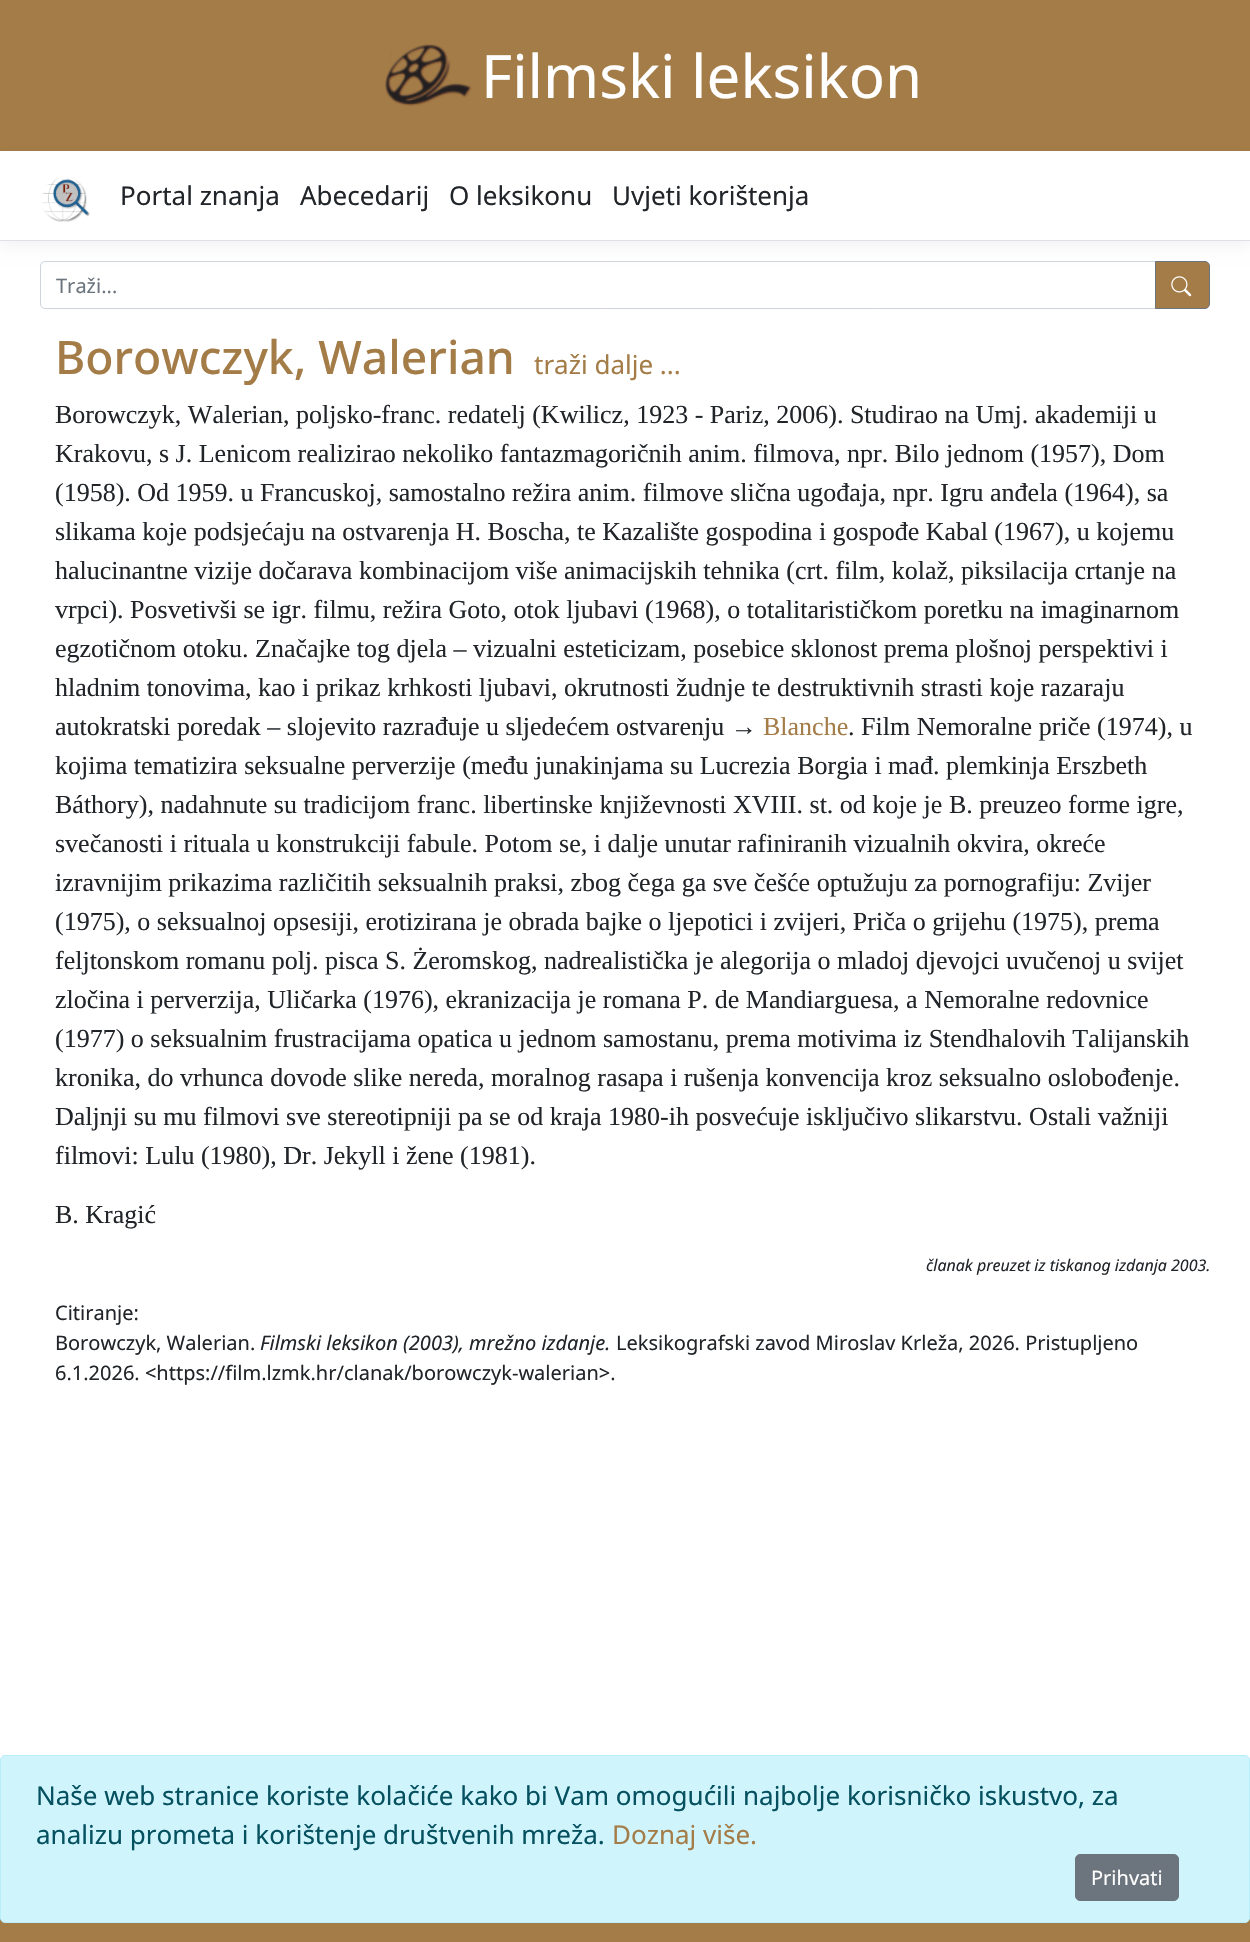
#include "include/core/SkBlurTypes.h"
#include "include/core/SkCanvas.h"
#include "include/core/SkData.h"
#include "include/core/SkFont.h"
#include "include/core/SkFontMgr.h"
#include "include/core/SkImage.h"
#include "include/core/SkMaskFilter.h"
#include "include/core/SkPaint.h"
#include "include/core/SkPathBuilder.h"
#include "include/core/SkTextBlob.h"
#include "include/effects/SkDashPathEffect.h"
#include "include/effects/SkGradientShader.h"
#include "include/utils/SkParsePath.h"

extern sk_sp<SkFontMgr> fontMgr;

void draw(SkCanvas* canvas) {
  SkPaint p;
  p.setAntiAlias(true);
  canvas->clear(SK_ColorWHITE);
  p.setColor(SkColorSetRGB(164, 124, 72));
  canvas->drawRect(SkRect::MakeLTRB(0, 0, 1250, 151), p);
  canvas->drawImageRect(SkImages::DeferredFromEncodedData(SkData::MakeFromFileName("images/1.png")), SkRect::MakeLTRB(385, 44, 472, 106), SkSamplingOptions());
  p.setColor(SkColorSetARGB(13, 0, 0, 0));
  p.setMaskFilter(SkMaskFilter::MakeBlur(kNormal_SkBlurStyle, 7.5f));
  canvas->drawRect(SkRect::MakeLTRB(0, 156, 1250, 246), p);
  p.setMaskFilter(nullptr);
  p.setColor(SK_ColorWHITE);
  canvas->drawRect(SkRect::MakeLTRB(0, 151, 1250, 240), p);
  p.setColor(SkColorSetRGB(222, 226, 230));
  canvas->drawRect(SkRect::MakeLTRB(0, 240, 1250, 241), p);
  canvas->drawImageRect(SkImages::DeferredFromEncodedData(SkData::MakeFromFileName("images/2.png")), SkRect::MakeLTRB(41, 177, 90, 222), SkSamplingOptions());
  p.setStyle(SkPaint::kStroke_Style);
  p.setStrokeWidth(1);
  p.setColor(SkColorSetRGB(206, 212, 218));
  canvas->drawPath(SkPathBuilder().moveTo(45, 261.5f).lineTo(1155.5f, 261.5f).lineTo(1155.5f, 308.5f).lineTo(45, 308.5f).cubicTo(42.5f, 308.5f, 40.5f, 306.5f, 40.5f, 304).lineTo(40.5f, 266).cubicTo(40.5f, 263.5f, 42.5f, 261.5f, 45, 261.5f).close().detach(), p);
  p.setStyle(SkPaint::kFill_Style);
  p.setColor(SkColorSetRGB(164, 124, 72));
  canvas->drawPath(SkPathBuilder().moveTo(1155.5f, 261.5f).lineTo(1205, 261.5f).cubicTo(1207.5f, 261.5f, 1209.5f, 263.5f, 1209.5f, 266).lineTo(1209.5f, 304).cubicTo(1209.5f, 306.5f, 1207.5f, 308.5f, 1205, 308.5f).lineTo(1155.5f, 308.5f).close().detach(), p);
  p.setStyle(SkPaint::kStroke_Style);
  p.setColor(SkColorSetRGB(108, 117, 125));
  canvas->drawPath(SkPathBuilder().moveTo(1155.5f, 261.5f).lineTo(1205, 261.5f).cubicTo(1207.5f, 261.5f, 1209.5f, 263.5f, 1209.5f, 266).lineTo(1209.5f, 304).cubicTo(1209.5f, 306.5f, 1207.5f, 308.5f, 1205, 308.5f).lineTo(1155.5f, 308.5f).close().detach(), p);
  canvas->drawImageRect(SkImages::DeferredFromEncodedData(SkData::MakeFromFileName("images/3.png")), SkRect::MakeLTRB(1171, 276, 1192, 297), SkSamplingOptions());
  p.setStyle(SkPaint::kFill_Style);
  p.setColor(SkColorSetRGB(164, 124, 72));
  canvas->drawRect(SkRect::MakeLTRB(0, 1918, 1250, 1942), p);
  p.setColor(SkColorSetRGB(207, 244, 252));
  canvas->drawRoundRect(SkRect::MakeLTRB(0.5f, 1755.5f, 1249.5f, 1922.5f), 4.5f, 4.5f, p);
  p.setStyle(SkPaint::kStroke_Style);
  p.setColor(SkColorSetRGB(182, 239, 251));
  canvas->drawRoundRect(SkRect::MakeLTRB(0.5f, 1755.5f, 1249.5f, 1922.5f), 4.5f, 4.5f, p);
  p.setStyle(SkPaint::kFill_Style);
  p.setColor(SkColorSetRGB(108, 117, 125));
  canvas->drawRoundRect(SkRect::MakeLTRB(1075.5f, 1854.5f, 1178.5f, 1900.5f), 4.5f, 4.5f, p);
  p.setStyle(SkPaint::kStroke_Style);
  canvas->drawRoundRect(SkRect::MakeLTRB(1075.5f, 1854.5f, 1178.5f, 1900.5f), 4.5f, 4.5f, p);
  SkFont font1(fontMgr->matchFamilyStyle("Noto Sans", SkFontStyle::Normal()), 60);
  font1.setSubpixel(true);
  p.setStyle(SkPaint::kFill_Style);
  p.setColor(SK_ColorWHITE);
  canvas->drawString("Filmski leksikon", 481, 98, font1, p);
  SkFont font2(fontMgr->matchFamilyStyle("Noto Sans", SkFontStyle::Normal()), 26);
  font2.setSubpixel(true);
  p.setColor(SkColorSetRGB(33, 37, 41));
  canvas->drawString("Portal znanja", 120, 205, font2, p);
  canvas->drawString("Abecedarij", 300, 205, font2, p);
  canvas->drawString("O leksikonu", 449, 205, font2, p);
  canvas->drawString("Uvjeti korištenja", 612, 205, font2, p);
  SkFont font3(fontMgr->matchFamilyStyle("Noto Sans", SkFontStyle::Normal()), 20);
  font3.setSubpixel(true);
  p.setColor(SkColorSetRGB(108, 117, 125));
  canvas->drawString("Traži...", 56, 293, font3, p);
  SkFont font4(fontMgr->matchFamilyStyle("Noto Sans", SkFontStyle(500, SkFontStyle::kNormal_Width, SkFontStyle::kUpright_Slant)), 46.25f);
  font4.setSubpixel(true);
  p.setColor(SkColorSetRGB(164, 124, 72));
  canvas->drawString("Borowczyk, Walerian", 55, 374, font4, p);
  canvas->drawString("traži dalje ...", 534, 374, font2, p);
  SkFont font5(fontMgr->matchFamilyStyle("Liberation Serif", SkFontStyle::Normal()), 26);
  font5.setSubpixel(true);
  p.setColor(SkColorSetRGB(33, 37, 41));
  canvas->drawString("Borowczyk, Walerian, poljsko-franc. redatelj (Kwilicz, 1923 - Pariz, 2006). Studirao na Umj. akademiji u", 55, 423, font5, p);
  canvas->drawString("Krakovu, s J. Lenicom realizirao nekoliko fantazmagoričnih anim. filmova, npr. Bilo jednom (1957), Dom", 55, 462, font5, p);
  canvas->drawString("(1958). Od 1959. u Francuskoj, samostalno režira anim. filmove slična ugođaja, npr. Igru anđela (1964), sa", 55, 501, font5, p);
  canvas->drawString("slikama koje podsjećaju na ostvarenja H. Boscha, te Kazalište gospodina i gospođe Kabal (1967), u kojemu", 55, 540, font5, p);
  canvas->drawString("halucinantne vizije dočarava kombinacijom više animacijskih tehnika (crt. film, kolaž, piksilacija crtanje na", 55, 579, font5, p);
  canvas->drawString("vrpci). Posvetivši se igr. filmu, režira Goto, otok ljubavi (1968), o totalitarističkom poretku na imaginarnom", 55, 618, font5, p);
  canvas->drawString("egzotičnom otoku. Značajke tog djela – vizualni esteticizam, posebice sklonost prema plošnoj perspektivi i", 55, 657, font5, p);
  canvas->drawString("hladnim tonovima, kao i prikaz krhkosti ljubavi, okrutnosti žudnje te destruktivnih strasti koje razaraju", 55, 696, font5, p);
  canvas->drawString("autokratski poredak – slojevito razrađuje u sljedećem ostvarenju →", 55, 735, font5, p);
  p.setColor(SkColorSetRGB(164, 124, 72));
  canvas->drawString("Blanche", 763, 735, font5, p);
  p.setColor(SkColorSetRGB(33, 37, 41));
  canvas->drawString(". Film Nemoralne priče (1974), u", 848, 735, font5, p);
  canvas->drawString("kojima tematizira seksualne perverzije (među junakinjama su Lucrezia Borgia i mađ. plemkinja Erszbeth", 55, 774, font5, p);
  canvas->drawString("Báthory), nadahnute su tradicijom franc. libertinske književnosti XVIII. st. od koje je B. preuzeo forme igre,", 55, 813, font5, p);
  canvas->drawString("svečanosti i rituala u konstrukciji fabule. Potom se, i dalje unutar rafiniranih vizualnih okvira, okreće", 55, 852, font5, p);
  canvas->drawString("izravnijim prikazima različitih seksualnih praksi, zbog čega ga sve češće optužuju za pornografiju: Zvijer", 55, 891, font5, p);
  canvas->drawString("(1975), o seksualnoj opsesiji, erotizirana je obrada bajke o ljepotici i zvijeri, Priča o grijehu (1975), prema", 55, 930, font5, p);
  canvas->drawString("feljtonskom romanu polj. pisca S. Żeromskog, nadrealistička je alegorija o mladoj djevojci uvučenoj u svijet", 55, 969, font5, p);
  canvas->drawString("zločina i perverzija, Uličarka (1976), ekranizacija je romana P. de Mandiarguesa, a Nemoralne redovnice", 55, 1008, font5, p);
  canvas->drawString("(1977) o seksualnim frustracijama opatica u jednom samostanu, prema motivima iz Stendhalovih Talijanskih", 55, 1047, font5, p);
  canvas->drawString("kronika, do vrhunca dovode slike nereda, moralnog rasapa i rušenja konvencija kroz seksualno oslobođenje.", 55, 1086, font5, p);
  canvas->drawString("Daljnji su mu filmovi sve stereotipniji pa se od kraja 1980-ih posvećuje isključivo slikarstvu. Ostali važniji", 55, 1125, font5, p);
  canvas->drawString("filmovi: Lulu (1980), Dr. Jekyll i žene (1981).", 55, 1164, font5, p);
  canvas->drawString("B. Kragić", 55, 1223, font5, p);
  SkFont font6(fontMgr->matchFamilyStyle("Noto Sans", SkFontStyle::Italic()), 16);
  font6.setSubpixel(true);
  canvas->drawString("članak preuzet iz tiskanog izdanja 2003.", 926, 1271, font6, p);
  canvas->drawString("Citiranje:", 55, 1320, font3, p);
  canvas->drawString("Borowczyk, Walerian.", 55, 1350, font3, p);
  SkFont font7(fontMgr->matchFamilyStyle("Noto Sans", SkFontStyle::Italic()), 20);
  font7.setSubpixel(true);
  canvas->drawString("Filmski leksikon (2003), mrežno izdanje.", 260, 1350, font7, p);
  canvas->drawString("Leksikografski zavod Miroslav Krleža, 2026. Pristupljeno", 616, 1350, font3, p);
  canvas->drawString("6.1.2026. <https://film.lzmk.hr/clanak/borowczyk-walerian>.", 55, 1380, font3, p);
  p.setColor(SkColorSetRGB(5, 81, 96));
  canvas->drawString("Naše web stranice koriste kolačiće kako bi Vam omogućili najbolje korisničko iskustvo, za", 36, 1805, font2, p);
  canvas->drawString("analizu prometa i korištenje društvenih mreža.", 36, 1844, font2, p);
  p.setColor(SkColorSetRGB(164, 124, 72));
  canvas->drawString("Doznaj više.", 612, 1844, font2, p);
  p.setColor(SK_ColorWHITE);
  canvas->drawString("Prihvati", 1091, 1885, font3, p);
}
